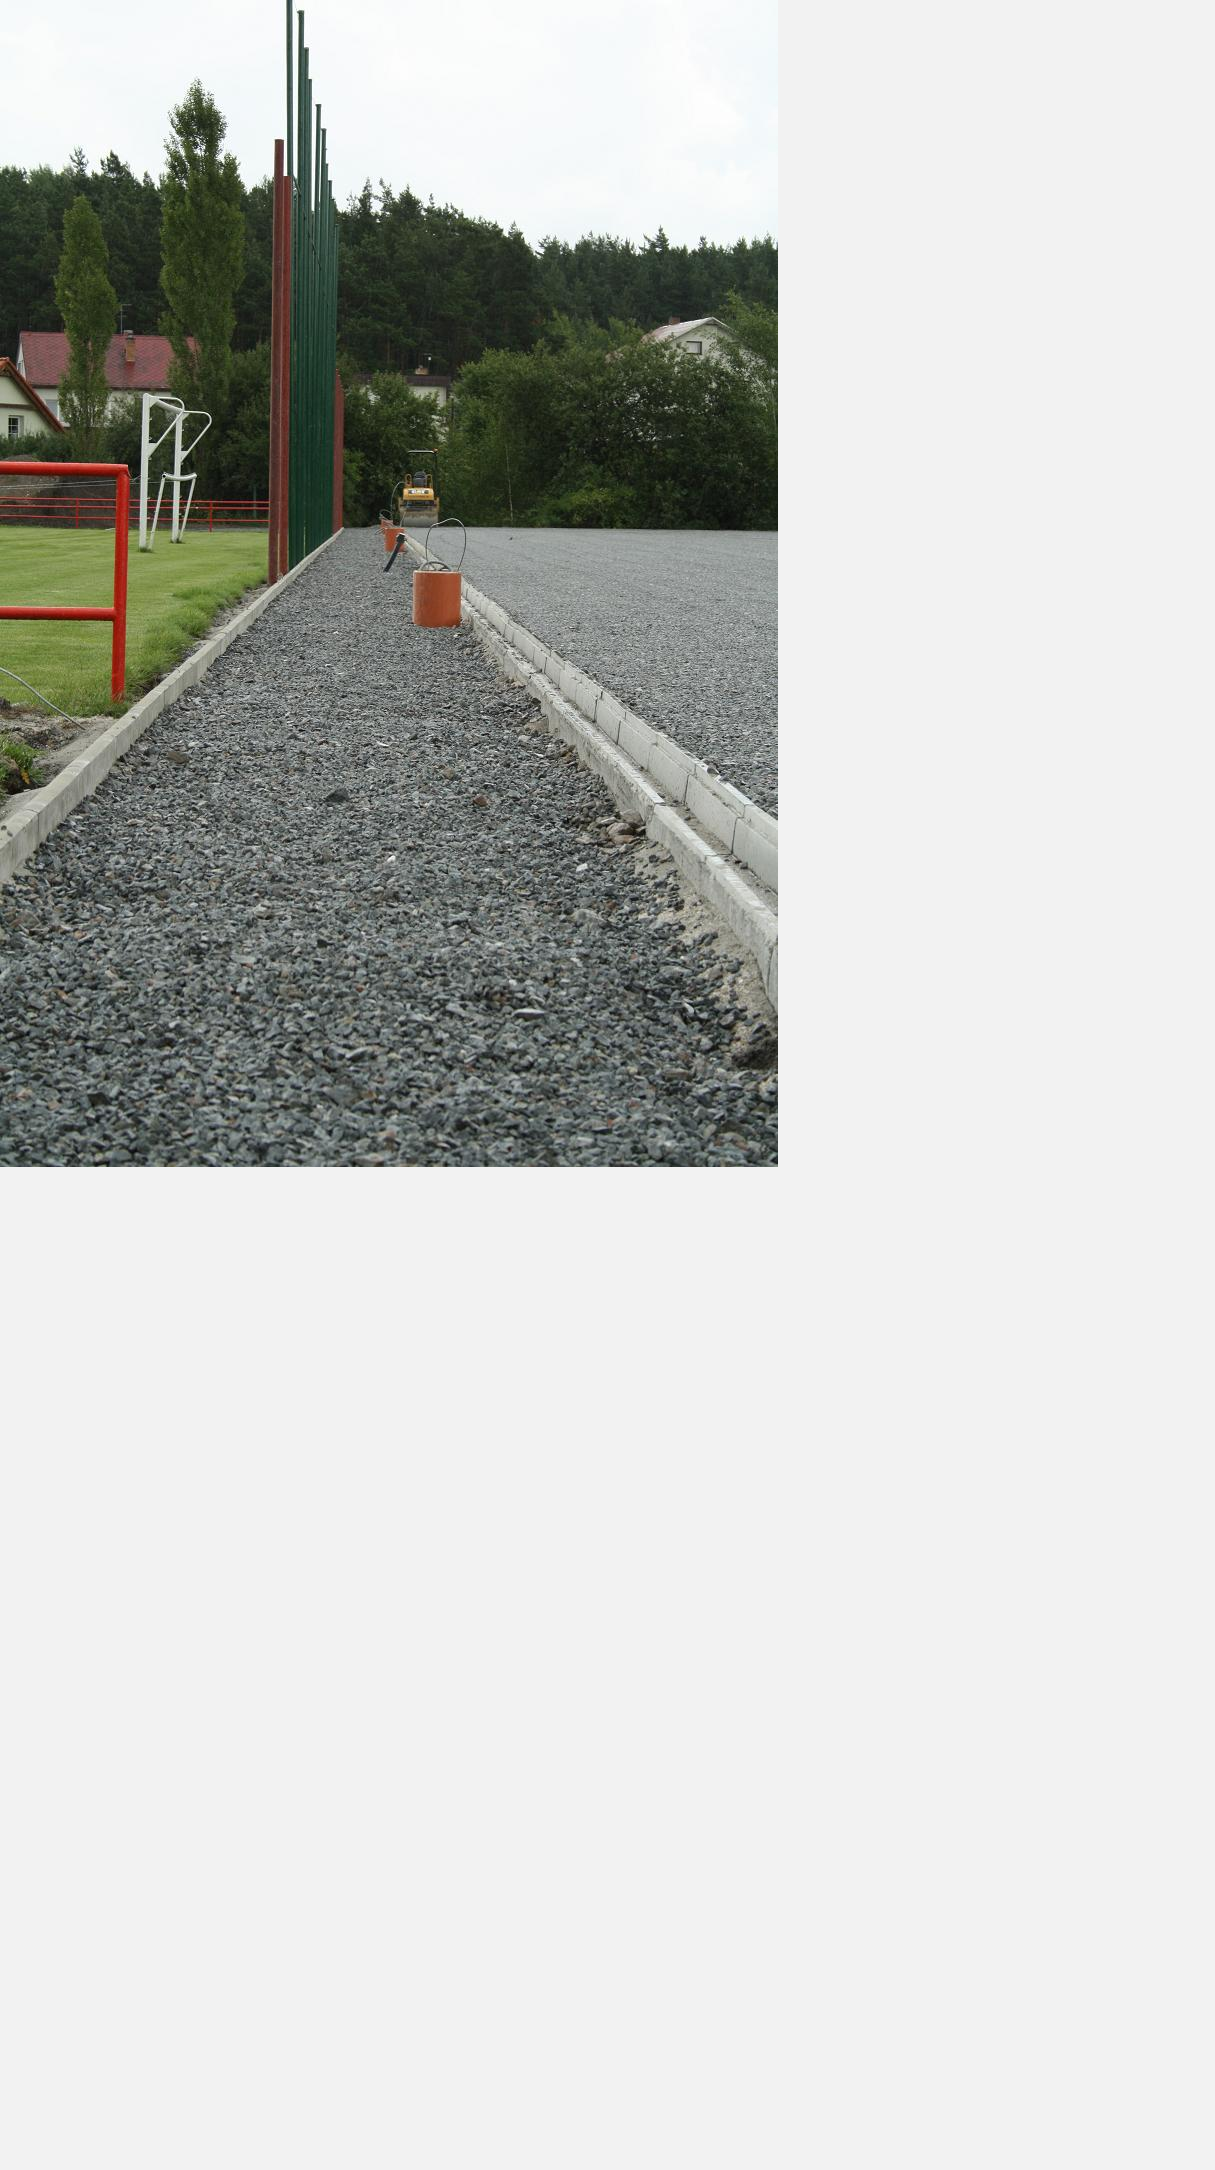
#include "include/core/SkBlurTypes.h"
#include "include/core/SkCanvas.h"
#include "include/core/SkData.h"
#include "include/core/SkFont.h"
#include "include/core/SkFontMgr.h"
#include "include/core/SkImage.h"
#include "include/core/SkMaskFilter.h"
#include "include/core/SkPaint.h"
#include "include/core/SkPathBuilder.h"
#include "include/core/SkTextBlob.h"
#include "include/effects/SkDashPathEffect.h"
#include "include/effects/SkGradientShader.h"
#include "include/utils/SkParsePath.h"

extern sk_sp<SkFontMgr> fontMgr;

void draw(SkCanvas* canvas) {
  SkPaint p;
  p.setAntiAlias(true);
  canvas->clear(SkColorSetRGB(242, 242, 242));
  canvas->drawImageRect(SkImages::DeferredFromEncodedData(SkData::MakeFromFileName("images/1.png")), SkRect::MakeLTRB(0, 0, 778, 1167), SkSamplingOptions());
}
